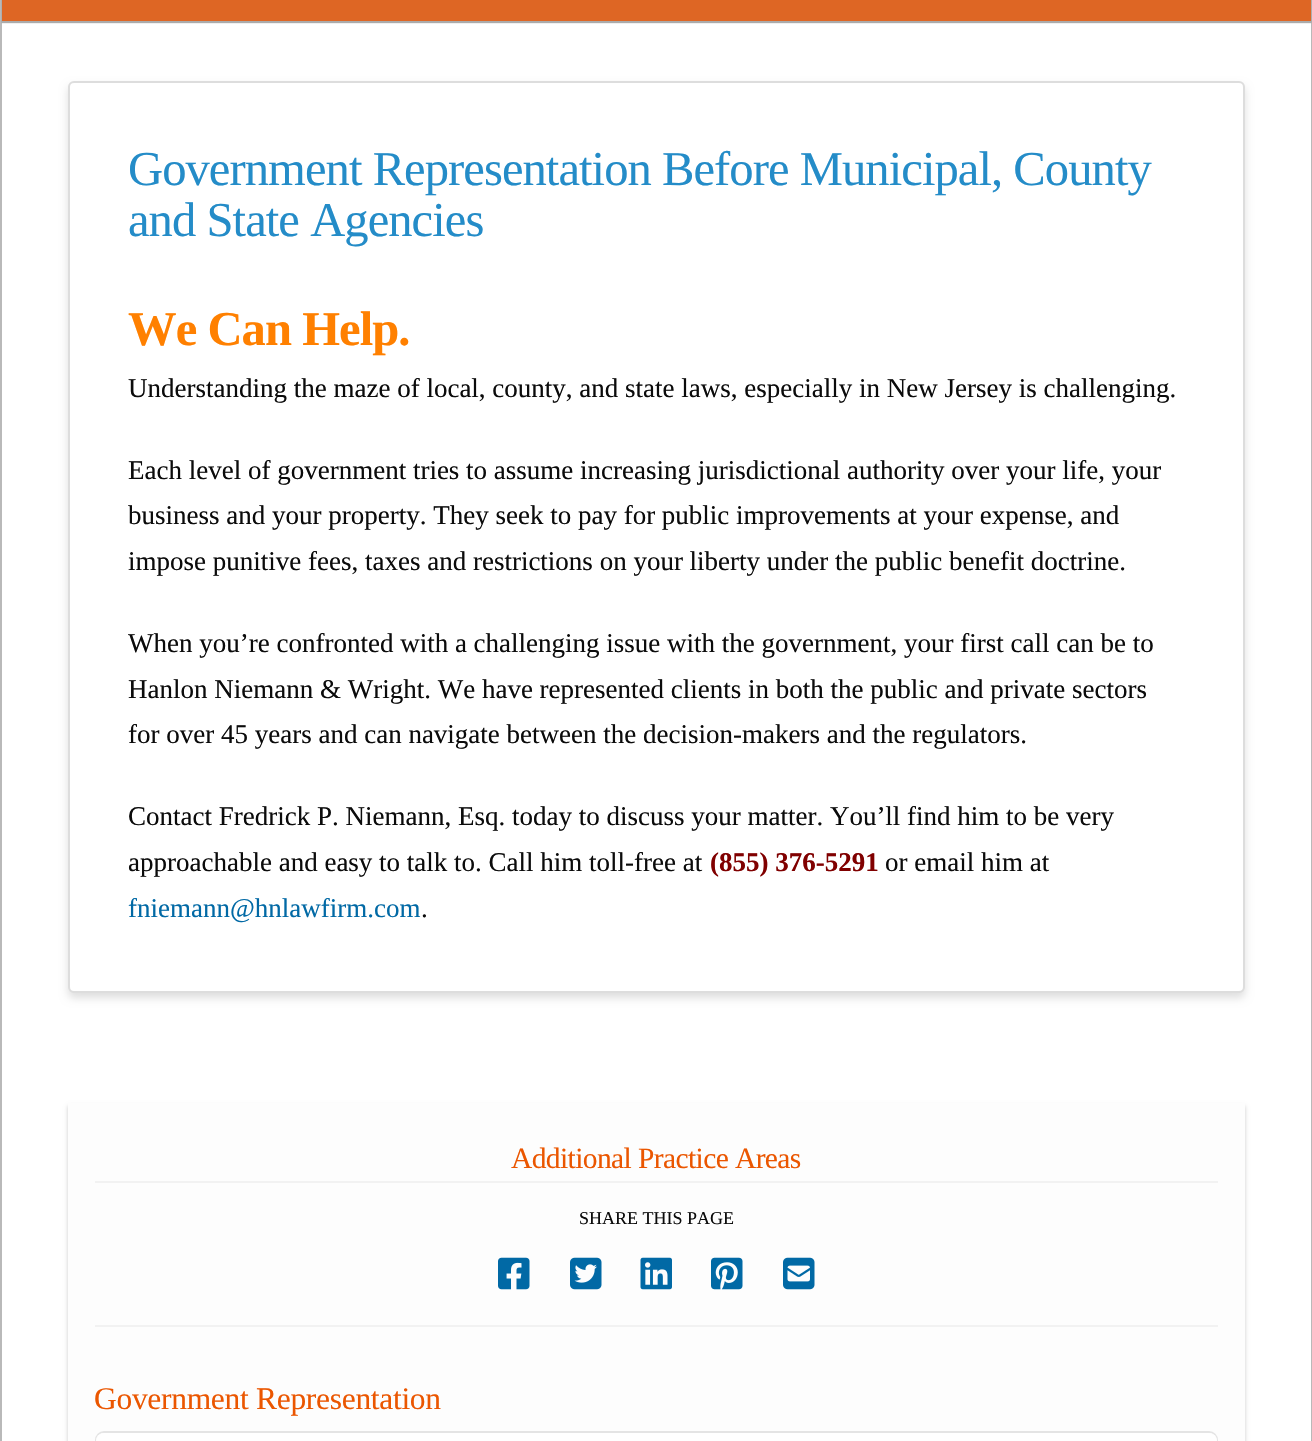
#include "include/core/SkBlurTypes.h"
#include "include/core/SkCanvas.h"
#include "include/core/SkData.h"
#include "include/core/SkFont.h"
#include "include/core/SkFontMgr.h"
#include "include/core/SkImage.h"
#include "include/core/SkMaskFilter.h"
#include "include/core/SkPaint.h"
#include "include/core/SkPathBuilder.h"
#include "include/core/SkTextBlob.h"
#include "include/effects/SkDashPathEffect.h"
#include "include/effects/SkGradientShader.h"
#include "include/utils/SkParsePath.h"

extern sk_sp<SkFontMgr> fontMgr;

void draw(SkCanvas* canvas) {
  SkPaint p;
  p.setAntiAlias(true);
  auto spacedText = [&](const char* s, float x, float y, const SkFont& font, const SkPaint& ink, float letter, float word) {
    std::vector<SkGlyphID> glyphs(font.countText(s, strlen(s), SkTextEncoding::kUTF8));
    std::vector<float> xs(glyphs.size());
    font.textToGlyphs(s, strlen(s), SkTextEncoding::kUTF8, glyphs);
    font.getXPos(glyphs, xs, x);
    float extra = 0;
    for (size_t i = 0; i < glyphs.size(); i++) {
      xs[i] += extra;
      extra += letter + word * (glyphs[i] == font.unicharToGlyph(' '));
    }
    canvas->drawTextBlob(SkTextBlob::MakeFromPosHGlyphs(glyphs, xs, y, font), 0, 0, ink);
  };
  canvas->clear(SK_ColorWHITE);
  p.setColor(SkColorSetRGB(185, 185, 185));
  canvas->drawRect(SkRect::MakeLTRB(1311, 0, 1312, 1441), p);
  canvas->drawRect(SkRect::MakeLTRB(0, 0, 2, 1441), p);
  p.setColor(SkColorSetARGB(84, 0, 0, 0));
  p.setMaskFilter(SkMaskFilter::MakeBlur(kNormal_SkBlurStyle, 0.5f));
  canvas->drawRect(SkRect::MakeLTRB(2, -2, 1311, 23), p);
  p.setMaskFilter(nullptr);
  p.setColor(SkColorSetRGB(222, 102, 36));
  canvas->drawRect(SkRect::MakeLTRB(2, 0, 1311, 21), p);
  p.setColor(SkColorSetARGB(33, 0, 0, 0));
  p.setMaskFilter(SkMaskFilter::MakeBlur(kNormal_SkBlurStyle, 4.5f));
  canvas->drawRoundRect(SkRect::MakeLTRB(68, 86, 1245, 998), 6, 6, p);
  p.setMaskFilter(nullptr);
  p.setColor(SK_ColorWHITE);
  canvas->drawRoundRect(SkRect::MakeLTRB(69, 82, 1244, 992), 5, 5, p);
  p.setStyle(SkPaint::kStroke_Style);
  p.setStrokeWidth(2);
  p.setColor(SkColorSetRGB(221, 221, 221));
  canvas->drawRoundRect(SkRect::MakeLTRB(69, 82, 1244, 992), 5, 5, p);
  p.setStyle(SkPaint::kFill_Style);
  p.setColor(SkColorSetARGB(51, 0, 0, 0));
  p.setMaskFilter(SkMaskFilter::MakeBlur(kNormal_SkBlurStyle, 2));
  canvas->drawRect(SkRect::MakeLTRB(68, 1106, 1245, 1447), p);
  p.setMaskFilter(nullptr);
  p.setColor(SkColorSetRGB(253, 253, 253));
  canvas->drawRect(SkRect::MakeLTRB(68, 1103, 1245, 1441), p);
  p.setColor(SkColorSetRGB(242, 242, 242));
  canvas->drawRect(SkRect::MakeLTRB(95, 1181, 1218, 1183), p);
  canvas->drawRect(SkRect::MakeLTRB(95, 1325, 1218, 1327), p);
  canvas->drawImageRect(SkImages::DeferredFromEncodedData(SkData::MakeFromFileName("images/1.png")), SkRect::MakeLTRB(498, 1257, 530, 1290), SkSamplingOptions());
  canvas->drawImageRect(SkImages::DeferredFromEncodedData(SkData::MakeFromFileName("images/2.png")), SkRect::MakeLTRB(570, 1257, 602, 1290), SkSamplingOptions());
  canvas->drawImageRect(SkImages::DeferredFromEncodedData(SkData::MakeFromFileName("images/3.png")), SkRect::MakeLTRB(640, 1257, 672, 1290), SkSamplingOptions());
  canvas->drawImageRect(SkImages::DeferredFromEncodedData(SkData::MakeFromFileName("images/4.png")), SkRect::MakeLTRB(711, 1257, 743, 1290), SkSamplingOptions());
  canvas->drawImageRect(SkImages::DeferredFromEncodedData(SkData::MakeFromFileName("images/5.png")), SkRect::MakeLTRB(783, 1257, 815, 1290), SkSamplingOptions());
  p.setStyle(SkPaint::kStroke_Style);
  p.setColor(SkColorSetRGB(228, 228, 228));
  canvas->drawRoundRect(SkRect::MakeLTRB(96, 1432, 1217, 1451), 8, 8, p);
  canvas->save();
  canvas->clipPath(SkPathBuilder().moveTo(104, 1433).lineTo(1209, 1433).cubicTo(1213.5f, 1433, 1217, 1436.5f, 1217, 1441).lineTo(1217, 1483).cubicTo(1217, 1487.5f, 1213.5f, 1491, 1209, 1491).lineTo(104, 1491).cubicTo(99.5f, 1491, 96, 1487.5f, 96, 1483).lineTo(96, 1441).cubicTo(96, 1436.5f, 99.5f, 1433, 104, 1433).close().detach(), true);
  p.setStyle(SkPaint::kFill_Style);
  p.setColor(SkColorSetARGB(242, 255, 255, 255));
  p.setMaskFilter(SkMaskFilter::MakeBlur(kNormal_SkBlurStyle, 1));
  canvas->drawRect(SkRect::MakeLTRB(96, 1434, 1217, 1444), p);
  p.setMaskFilter(nullptr);
  canvas->restore();
  p.setColor(SK_ColorWHITE);
  canvas->drawRoundRect(SkRect::MakeLTRB(96, 1433, 1217, 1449), 8, 8, p);
  SkFont font1(fontMgr->matchFamilyStyle("Liberation Serif", SkFontStyle::Normal()), 48.6f);
  font1.setSubpixel(true);
  p.setColor(SkColorSetRGB(36, 140, 200));
  spacedText("Government Representation Before Municipal, County", 128, 185, font1, p, -0.95f, 0);
  spacedText("and State Agencies", 128, 236, font1, p, -0.95f, 0);
  SkFont font2(fontMgr->matchFamilyStyle("Liberation Serif", SkFontStyle::Bold()), 48.6f);
  font2.setSubpixel(true);
  p.setColor(SkColorSetRGB(255, 128, 0));
  spacedText("We Can Help.", 128, 345, font2, p, -0.95f, 0);
  SkFont font3(fontMgr->matchFamilyStyle("Liberation Serif", SkFontStyle::Normal()), 27);
  font3.setSubpixel(true);
  p.setColor(SkColorSetRGB(11, 11, 11));
  canvas->drawString("Understanding the maze of local, county, and state laws, especially in New Jersey is challenging.", 128, 397, font3, p);
  canvas->drawString("Each level of government tries to assume increasing jurisdictional authority over your life, your", 128, 479, font3, p);
  canvas->drawString("business and your property. They seek to pay for public improvements at your expense, and", 128, 524, font3, p);
  canvas->drawString("impose punitive fees, taxes and restrictions on your liberty under the public benefit doctrine.", 128, 570, font3, p);
  canvas->drawString("When you’re confronted with a challenging issue with the government, your first call can be to", 128, 652, font3, p);
  canvas->drawString("Hanlon Niemann & Wright. We have represented clients in both the public and private sectors", 128, 698, font3, p);
  canvas->drawString("for over 45 years and can navigate between the decision-makers and the regulators.", 128, 743, font3, p);
  canvas->drawString("Contact Fredrick P. Niemann, Esq. today to discuss your matter. You’ll find him to be very", 128, 825, font3, p);
  canvas->drawString("approachable and easy to talk to. Call him toll-free at", 128, 871, font3, p);
  SkFont font4(fontMgr->matchFamilyStyle("Liberation Serif", SkFontStyle::Bold()), 27);
  font4.setSubpixel(true);
  p.setColor(SkColorSetRGB(128, 0, 0));
  canvas->drawString("(855) 376-5291", 710, 871, font4, p);
  p.setColor(SkColorSetRGB(11, 11, 11));
  canvas->drawString("or email him at", 885, 871, font3, p);
  p.setColor(SkColorSetRGB(1, 105, 165));
  canvas->drawString("fniemann@hnlawfirm.com", 128, 917, font3, p);
  p.setColor(SkColorSetRGB(11, 11, 11));
  canvas->drawString(".", 421, 917, font3, p);
  SkFont font5(fontMgr->matchFamilyStyle("Liberation Serif", SkFontStyle::Normal()), 29.5f);
  font5.setSubpixel(true);
  p.setColor(SkColorSetRGB(235, 86, 0));
  spacedText("Additional Practice Areas", 511, 1168, font5, p, -0.6f, 0);
  SkFont font6(fontMgr->matchFamilyStyle("Liberation Serif", SkFontStyle::Normal()), 18);
  font6.setSubpixel(true);
  p.setColor(SkColorSetRGB(11, 11, 11));
  canvas->drawString("SHARE THIS PAGE", 579, 1224, font6, p);
  SkFont font7(fontMgr->matchFamilyStyle("Liberation Serif", SkFontStyle::Normal()), 31.5f);
  font7.setSubpixel(true);
  p.setColor(SkColorSetRGB(235, 86, 0));
  spacedText("Government Representation", 94, 1409, font7, p, -0.3f, 0);
}
